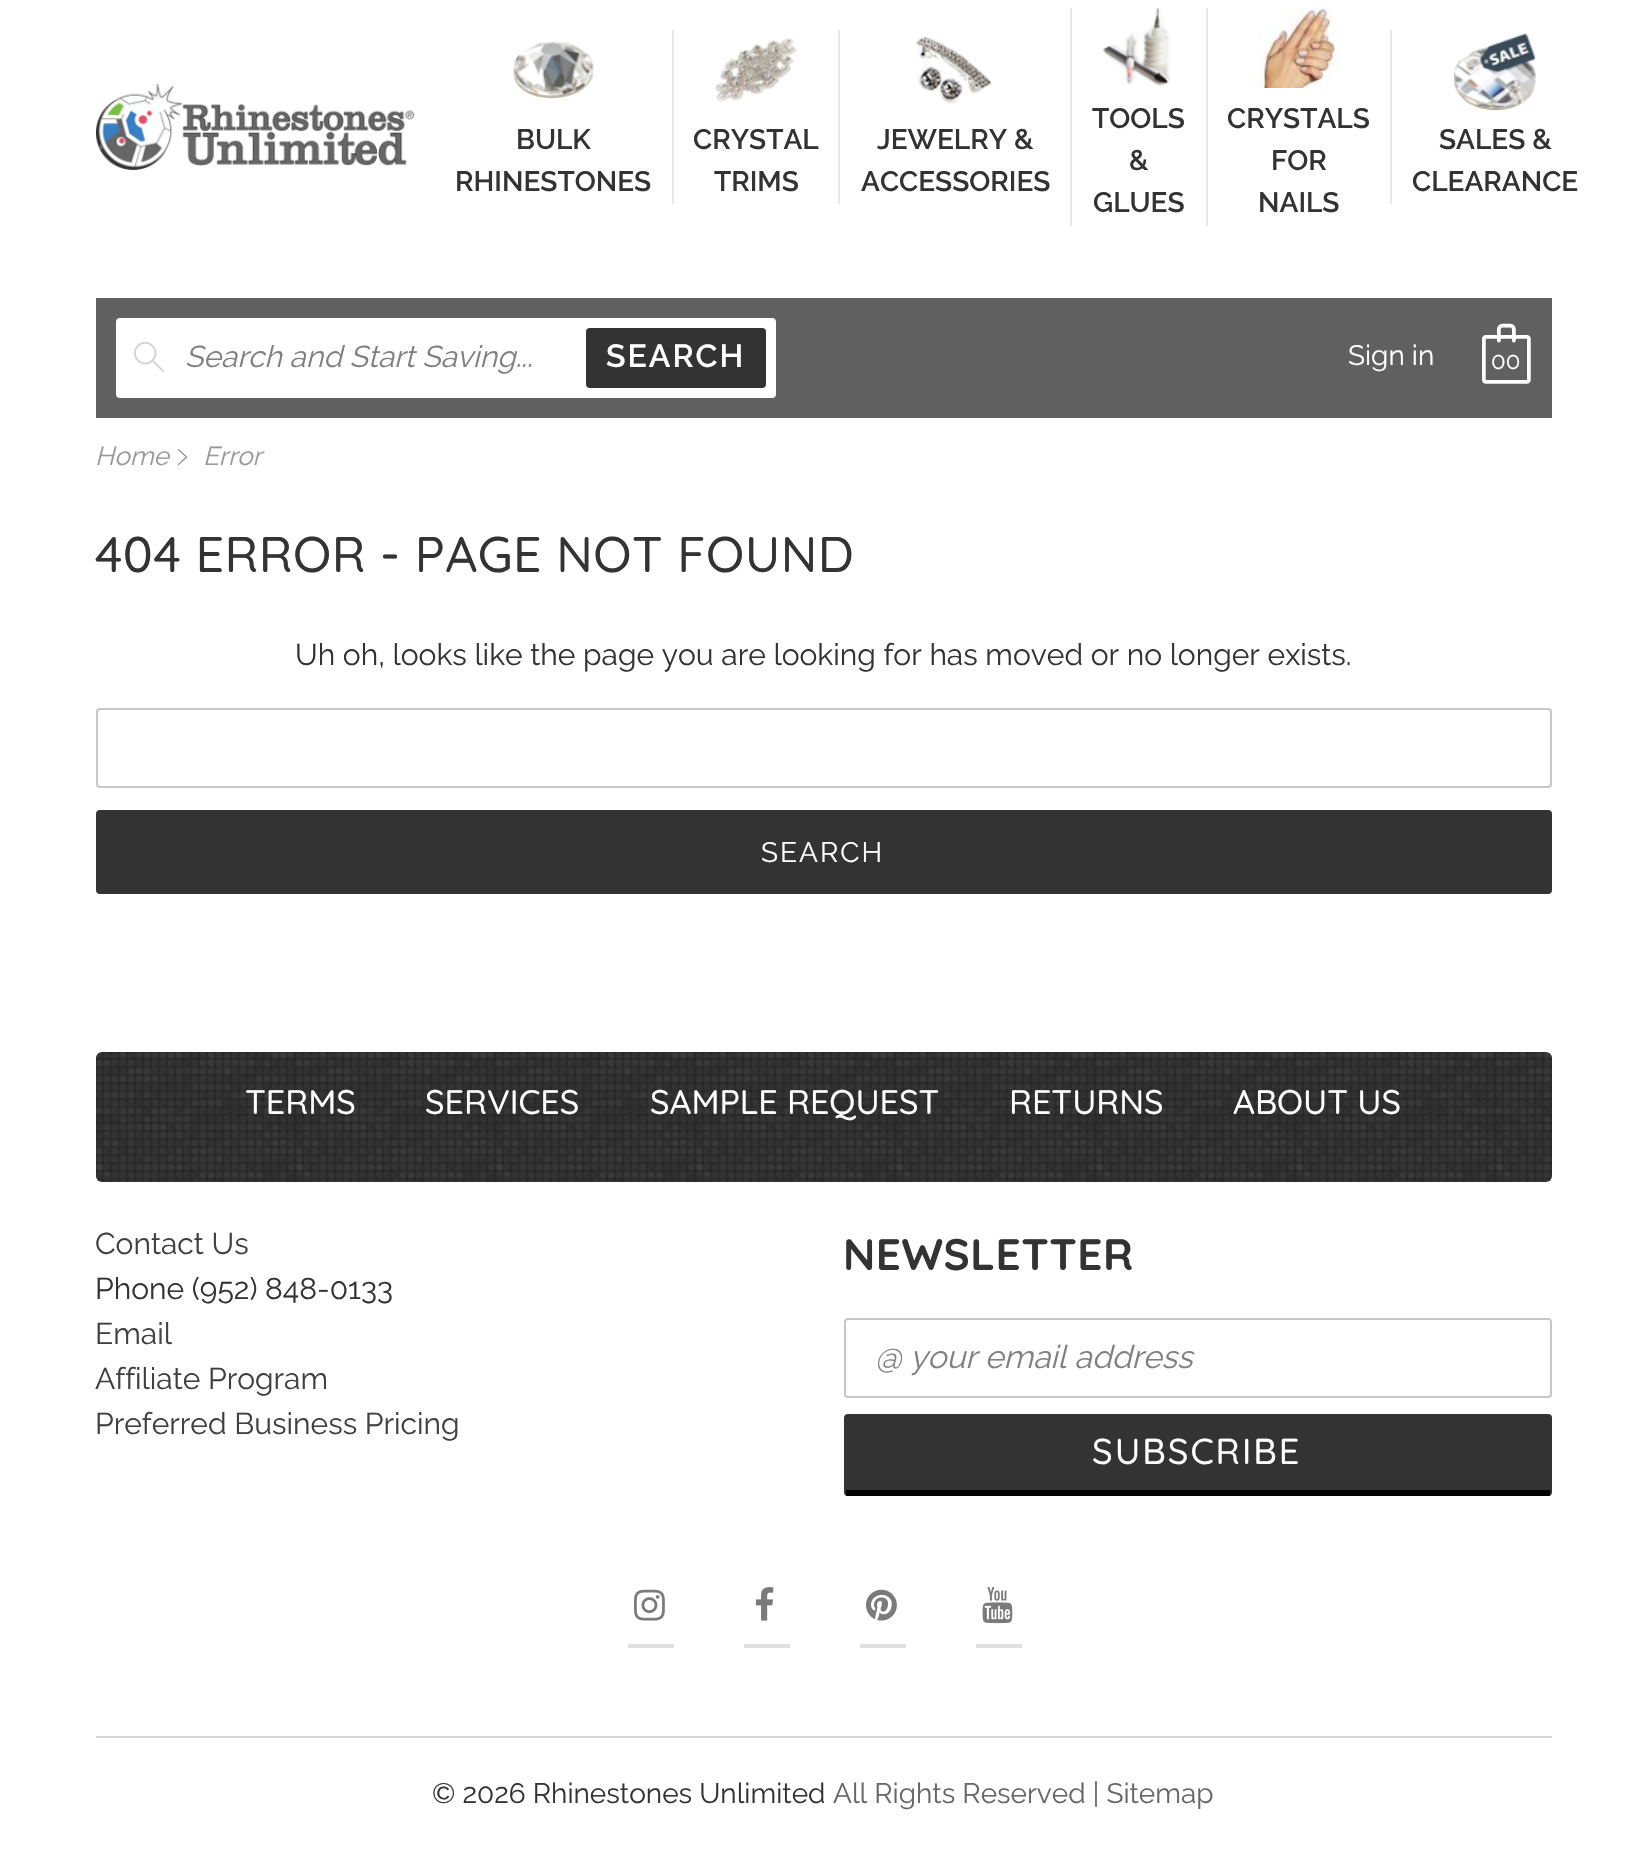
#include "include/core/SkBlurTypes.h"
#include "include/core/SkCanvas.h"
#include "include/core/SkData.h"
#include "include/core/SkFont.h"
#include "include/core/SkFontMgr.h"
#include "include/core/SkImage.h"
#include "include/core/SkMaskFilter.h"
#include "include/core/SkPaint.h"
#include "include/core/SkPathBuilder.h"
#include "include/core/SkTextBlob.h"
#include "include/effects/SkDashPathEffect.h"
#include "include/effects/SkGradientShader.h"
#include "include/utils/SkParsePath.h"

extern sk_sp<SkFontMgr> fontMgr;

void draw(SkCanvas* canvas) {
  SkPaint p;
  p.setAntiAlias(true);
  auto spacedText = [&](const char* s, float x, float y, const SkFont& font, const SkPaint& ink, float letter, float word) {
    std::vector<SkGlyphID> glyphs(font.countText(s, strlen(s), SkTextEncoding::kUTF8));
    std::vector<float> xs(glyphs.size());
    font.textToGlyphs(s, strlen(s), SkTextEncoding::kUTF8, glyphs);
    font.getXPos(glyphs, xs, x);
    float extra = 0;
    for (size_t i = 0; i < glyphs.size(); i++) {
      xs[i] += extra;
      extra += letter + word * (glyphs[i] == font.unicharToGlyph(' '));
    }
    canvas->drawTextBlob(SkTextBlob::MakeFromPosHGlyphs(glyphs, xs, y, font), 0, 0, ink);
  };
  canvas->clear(SK_ColorWHITE);
  canvas->drawImageRect(SkImages::DeferredFromEncodedData(SkData::MakeFromFileName("images/1.png")), SkRect::MakeLTRB(96, 84, 414, 170), SkSamplingOptions());
  canvas->drawImageRect(SkImages::DeferredFromEncodedData(SkData::MakeFromFileName("images/2.png")), SkRect::MakeLTRB(513, 41, 594, 99), SkSamplingOptions());
  p.setColor(SkColorSetRGB(234, 231, 231));
  canvas->drawRect(SkRect::MakeLTRB(672, 30, 674, 204), p);
  canvas->drawImageRect(SkImages::DeferredFromEncodedData(SkData::MakeFromFileName("images/3.png")), SkRect::MakeLTRB(715, 38, 797, 102), SkSamplingOptions());
  canvas->drawRect(SkRect::MakeLTRB(838, 30, 840, 204), p);
  canvas->drawImageRect(SkImages::DeferredFromEncodedData(SkData::MakeFromFileName("images/4.png")), SkRect::MakeLTRB(915, 36, 993, 104), SkSamplingOptions());
  canvas->drawRect(SkRect::MakeLTRB(1070, 8, 1072, 226), p);
  canvas->drawImageRect(SkImages::DeferredFromEncodedData(SkData::MakeFromFileName("images/5.png")), SkRect::MakeLTRB(1103, 8, 1171, 86), SkSamplingOptions());
  canvas->drawRect(SkRect::MakeLTRB(1206, 8, 1208, 226), p);
  canvas->drawImageRect(SkImages::DeferredFromEncodedData(SkData::MakeFromFileName("images/6.png")), SkRect::MakeLTRB(1258, 8, 1340, 88), SkSamplingOptions());
  canvas->drawRect(SkRect::MakeLTRB(1390, 30, 1392, 204), p);
  canvas->drawImageRect(SkImages::DeferredFromEncodedData(SkData::MakeFromFileName("images/7.png")), SkRect::MakeLTRB(1454, 33, 1536, 110), SkSamplingOptions());
  p.setColor(SkColorSetRGB(96, 96, 96));
  canvas->drawRect(SkRect::MakeLTRB(96, 298, 1552, 418), p);
  p.setColor(SK_ColorWHITE);
  canvas->drawRoundRect(SkRect::MakeLTRB(116, 318, 776, 398), 4, 4, p);
  canvas->drawImageRect(SkImages::DeferredFromEncodedData(SkData::MakeFromFileName("images/8.png")), SkRect::MakeLTRB(134, 341, 164, 372), SkSamplingOptions());
  p.setColor(SkColorSetRGB(51, 51, 51));
  canvas->drawRoundRect(SkRect::MakeLTRB(586, 328, 766, 388), 4, 4, p);
  canvas->drawImageRect(SkImages::DeferredFromEncodedData(SkData::MakeFromFileName("images/10.png")), SkRect::MakeLTRB(178, 449, 187, 465), SkSamplingOptions());
  p.setStyle(SkPaint::kStroke_Style);
  p.setStrokeWidth(2);
  p.setColor(SkColorSetRGB(199, 199, 199));
  canvas->drawRoundRect(SkRect::MakeLTRB(97, 709, 1551, 787), 3, 3, p);
  p.setStyle(SkPaint::kFill_Style);
  p.setColor(SkColorSetRGB(51, 51, 51));
  canvas->drawRoundRect(SkRect::MakeLTRB(96, 810, 1552, 894), 4, 4, p);
  canvas->drawImageRect(SkImages::DeferredFromEncodedData(SkData::MakeFromFileName("images/11.png")), SkRect::MakeLTRB(96, 1052, 1552, 1182), SkSamplingOptions());
  p.setStyle(SkPaint::kStroke_Style);
  p.setColor(SkColorSetRGB(199, 199, 199));
  canvas->drawRoundRect(SkRect::MakeLTRB(845, 1319, 1551, 1397), 3, 3, p);
  p.setStyle(SkPaint::kFill_Style);
  p.setColor(SkColorSetRGB(51, 51, 51));
  canvas->drawRoundRect(SkRect::MakeLTRB(844, 1414, 1552, 1496), 4, 4, p);
  p.setColor(SK_ColorBLACK);
  canvas->drawRect(SkRect::MakeLTRB(846, 1490, 1550, 1496), p);
  p.setColor(SkColorSetRGB(224, 224, 224));
  canvas->drawRect(SkRect::MakeLTRB(628, 1644, 674, 1648), p);
  canvas->drawImageRect(SkImages::DeferredFromEncodedData(SkData::MakeFromFileName("images/12.png")), SkRect::MakeLTRB(634, 1589, 665, 1621), SkSamplingOptions());
  canvas->drawRect(SkRect::MakeLTRB(744, 1644, 790, 1648), p);
  canvas->drawImageRect(SkImages::DeferredFromEncodedData(SkData::MakeFromFileName("images/13.png")), SkRect::MakeLTRB(755, 1587, 774, 1621), SkSamplingOptions());
  canvas->drawRect(SkRect::MakeLTRB(860, 1644, 906, 1648), p);
  canvas->drawImageRect(SkImages::DeferredFromEncodedData(SkData::MakeFromFileName("images/14.png")), SkRect::MakeLTRB(866, 1589, 897, 1621), SkSamplingOptions());
  canvas->drawRect(SkRect::MakeLTRB(976, 1644, 1022, 1648), p);
  canvas->drawImageRect(SkImages::DeferredFromEncodedData(SkData::MakeFromFileName("images/15.png")), SkRect::MakeLTRB(982, 1587, 1013, 1624), SkSamplingOptions());
  p.setColor(SkColorSetRGB(212, 212, 212));
  canvas->drawRect(SkRect::MakeLTRB(96, 1736, 1552, 1738), p);
  SkFont font1(fontMgr->matchFamilyStyle("Raleway", SkFontStyle(600, SkFontStyle::kNormal_Width, SkFontStyle::kUpright_Slant)), 28);
  font1.setSubpixel(true);
  p.setColor(SkColorSetRGB(51, 51, 51));
  canvas->drawString("BULK", 516, 149, font1, p);
  canvas->drawString("RHINESTONES", 455, 191, font1, p);
  canvas->drawString("CRYSTAL", 693, 149, font1, p);
  canvas->drawString("TRIMS", 714, 191, font1, p);
  canvas->drawString("JEWELRY &", 877, 149, font1, p);
  canvas->drawString("ACCESSORIES", 861, 191, font1, p);
  canvas->drawString("TOOLS", 1092, 128, font1, p);
  canvas->drawString("&", 1129, 170, font1, p);
  canvas->drawString("GLUES", 1093, 212, font1, p);
  canvas->drawString("CRYSTALS", 1227, 128, font1, p);
  canvas->drawString("FOR", 1271, 170, font1, p);
  canvas->drawString("NAILS", 1258, 212, font1, p);
  canvas->drawString("SALES &", 1439, 149, font1, p);
  canvas->drawString("CLEARANCE", 1412, 191, font1, p);
  SkFont font2(fontMgr->matchFamilyStyle("Raleway", SkFontStyle(100, SkFontStyle::kNormal_Width, SkFontStyle::kItalic_Slant)), 30);
  font2.setSubpixel(true);
  p.setColor(SkColorSetRGB(128, 128, 128));
  canvas->drawString("Search and Start Saving...", 185, 367, font2, p);
  SkFont font3(fontMgr->matchFamilyStyle("Raleway", SkFontStyle(600, SkFontStyle::kNormal_Width, SkFontStyle::kUpright_Slant)), 32);
  font3.setSubpixel(true);
  p.setColor(SK_ColorWHITE);
  spacedText("SEARCH", 606, 367, font3, p, 2, 0);
  SkFont font4(fontMgr->matchFamilyStyle("Raleway", SkFontStyle(100, SkFontStyle::kNormal_Width, SkFontStyle::kUpright_Slant)), 28);
  font4.setSubpixel(true);
  canvas->drawString("Sign in", 1348, 365, font4, p);
  SkFont font5(fontMgr->matchFamilyStyle("Raleway", SkFontStyle(100, SkFontStyle::kNormal_Width, SkFontStyle::kUpright_Slant)), 24);
  font5.setSubpixel(true);
  canvas->drawString("00", 1491, 369, font5, p);
  canvas->drawImageRect(SkImages::DeferredFromEncodedData(SkData::MakeFromFileName("images/9.png")), SkRect::MakeLTRB(1482, 323, 1531, 384), SkSamplingOptions());
  SkFont font6(fontMgr->matchFamilyStyle("Raleway", SkFontStyle(100, SkFontStyle::kNormal_Width, SkFontStyle::kItalic_Slant)), 26);
  font6.setSubpixel(true);
  p.setColor(SkColorSetRGB(153, 153, 153));
  canvas->drawString("Home", 95, 465, font6, p);
  canvas->drawString("Error", 203, 465, font6, p);
  SkFont font7(fontMgr->matchFamilyStyle("Quicksand", SkFontStyle(500, SkFontStyle::kNormal_Width, SkFontStyle::kUpright_Slant)), 50);
  font7.setSubpixel(true);
  p.setColor(SkColorSetRGB(51, 51, 51));
  spacedText("404 ERROR - PAGE NOT FOUND", 95, 572, font7, p, 0.5f, 0);
  SkFont font8(fontMgr->matchFamilyStyle("Raleway", SkFontStyle(100, SkFontStyle::kNormal_Width, SkFontStyle::kUpright_Slant)), 30);
  font8.setSubpixel(true);
  canvas->drawString("Uh oh, looks like the page you are looking for has moved or no longer exists.", 295, 665, font8, p);
  p.setColor(SK_ColorWHITE);
  spacedText("SEARCH", 761, 862, font4, p, 2, 0);
  SkFont font9(fontMgr->matchFamilyStyle("Quicksand", SkFontStyle(500, SkFontStyle::kNormal_Width, SkFontStyle::kUpright_Slant)), 34);
  font9.setSubpixel(true);
  canvas->drawString("TERMS", 245, 1114, font9, p);
  canvas->drawString("SERVICES", 425, 1114, font9, p);
  canvas->drawString("SAMPLE REQUEST", 650, 1114, font9, p);
  canvas->drawString("RETURNS", 1009, 1114, font9, p);
  canvas->drawString("ABOUT US", 1233, 1114, font9, p);
  p.setColor(SkColorSetRGB(64, 64, 64));
  canvas->drawString("Contact Us", 95, 1254, font8, p);
  p.setColor(SkColorSetRGB(51, 51, 51));
  canvas->drawString("Phone (952) 848-0133", 95, 1299, font8, p);
  p.setColor(SkColorSetRGB(64, 64, 64));
  canvas->drawString("Email", 95, 1344, font8, p);
  canvas->drawString("Affiliate Program", 95, 1389, font8, p);
  canvas->drawString("Preferred Business Pricing", 95, 1434, font8, p);
  SkFont font10(fontMgr->matchFamilyStyle("Quicksand", SkFontStyle::Bold()), 44);
  font10.setSubpixel(true);
  p.setColor(SkColorSetRGB(51, 51, 51));
  spacedText("NEWSLETTER", 843, 1270, font10, p, 0.5f, 0);
  SkFont font11(fontMgr->matchFamilyStyle("Raleway", SkFontStyle(100, SkFontStyle::kNormal_Width, SkFontStyle::kItalic_Slant)), 32);
  font11.setSubpixel(true);
  p.setColor(SkColorSetRGB(128, 128, 128));
  canvas->drawString("@ your email address", 875, 1368, font11, p);
  SkFont font12(fontMgr->matchFamilyStyle("Quicksand", SkFontStyle(500, SkFontStyle::kNormal_Width, SkFontStyle::kUpright_Slant)), 36);
  font12.setSubpixel(true);
  p.setColor(SK_ColorWHITE);
  spacedText("SUBSCRIBE", 1092, 1464, font12, p, 2, 0);
  p.setColor(SkColorSetRGB(51, 51, 51));
  canvas->drawString("© 2026 Rhinestones Unlimited", 432, 1803, font4, p);
  p.setColor(SkColorSetRGB(102, 102, 102));
  canvas->drawString("All Rights Reserved | Sitemap", 833, 1803, font4, p);
}
